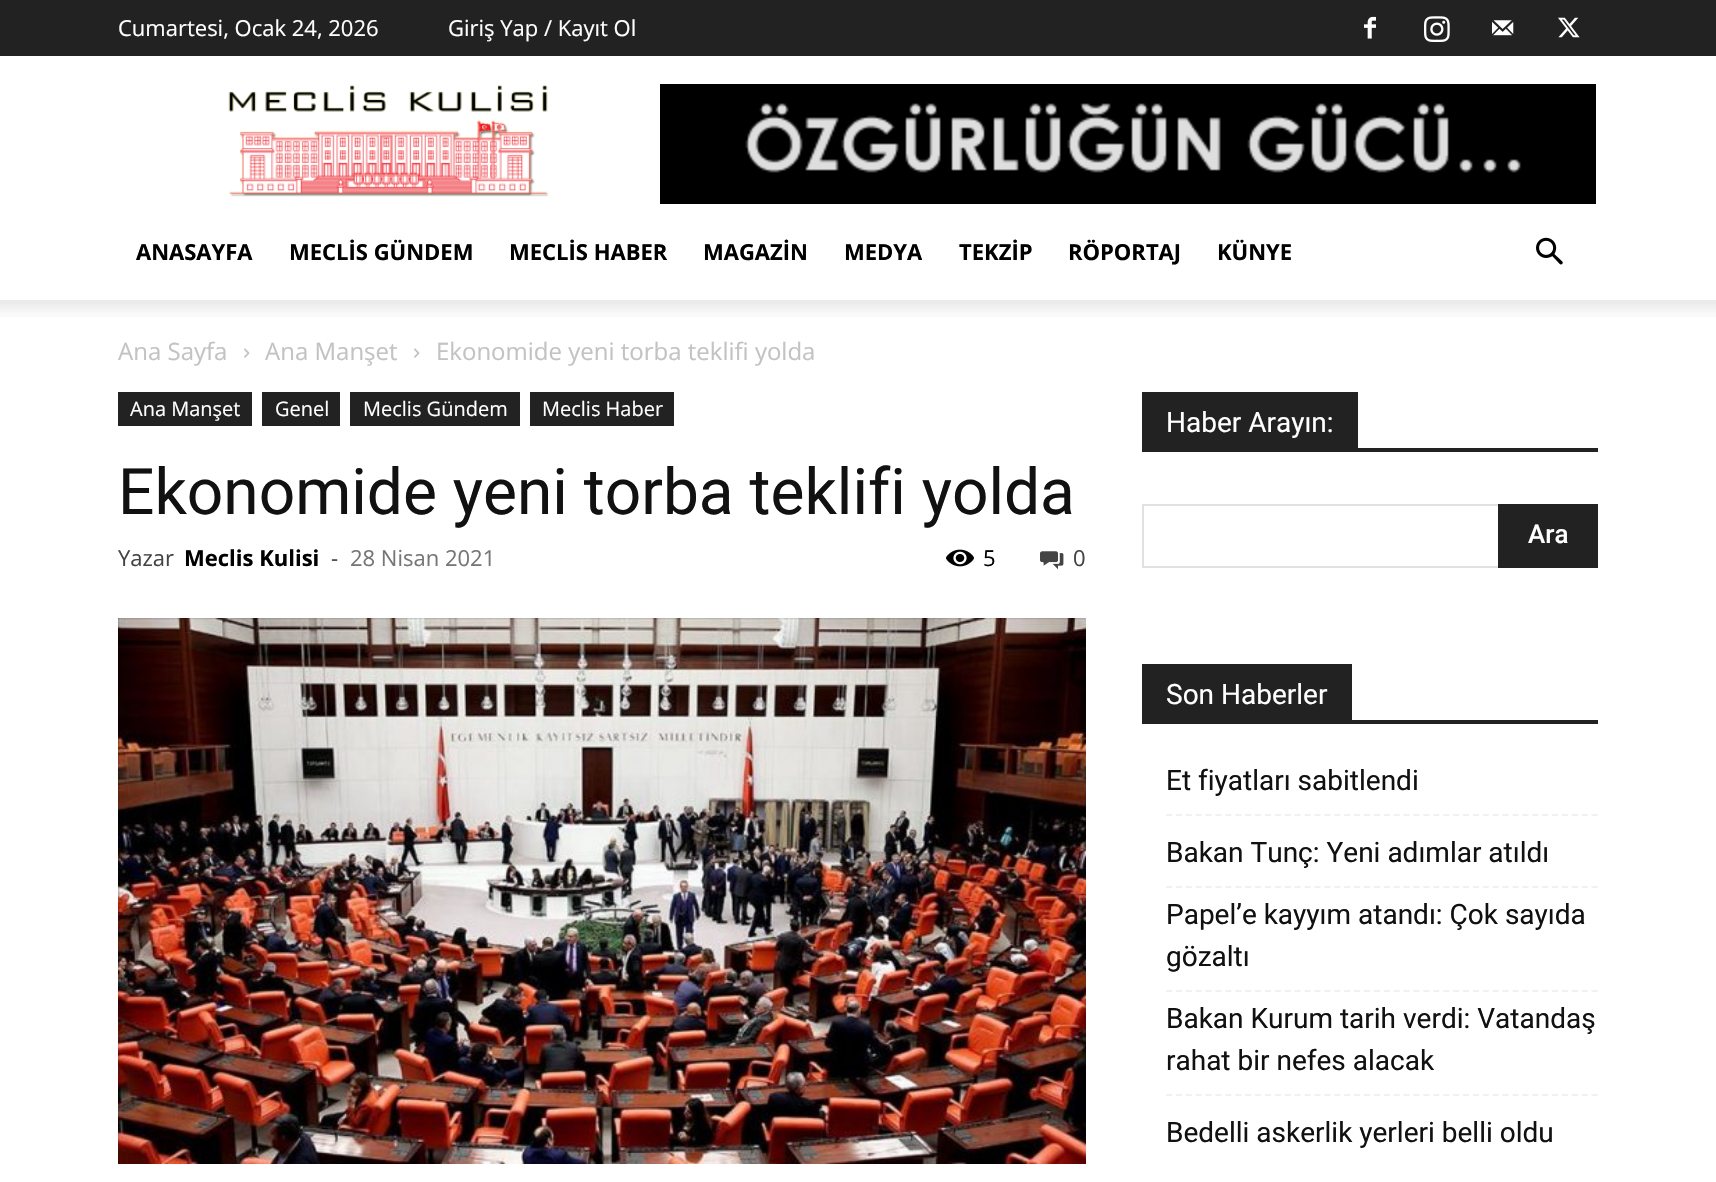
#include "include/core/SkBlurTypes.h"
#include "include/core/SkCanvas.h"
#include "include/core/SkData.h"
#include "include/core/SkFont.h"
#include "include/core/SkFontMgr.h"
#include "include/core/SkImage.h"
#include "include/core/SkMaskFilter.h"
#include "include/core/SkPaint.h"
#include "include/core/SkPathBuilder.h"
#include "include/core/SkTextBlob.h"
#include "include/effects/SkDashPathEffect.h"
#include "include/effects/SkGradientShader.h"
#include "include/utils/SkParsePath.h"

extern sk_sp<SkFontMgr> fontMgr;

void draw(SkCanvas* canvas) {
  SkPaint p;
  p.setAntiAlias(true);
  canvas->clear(SK_ColorWHITE);
  p.setColor(SkColorSetRGB(34, 34, 34));
  canvas->drawRect(SkRect::MakeLTRB(0, 0, 1716, 56), p);
  canvas->drawImageRect(SkImages::DeferredFromEncodedData(SkData::MakeFromFileName("images/1.png")), SkRect::MakeLTRB(1364, 16, 1376, 39), SkSamplingOptions());
  canvas->drawImageRect(SkImages::DeferredFromEncodedData(SkData::MakeFromFileName("images/2.png")), SkRect::MakeLTRB(1424, 16, 1450, 42), SkSamplingOptions());
  canvas->drawImageRect(SkImages::DeferredFromEncodedData(SkData::MakeFromFileName("images/3.png")), SkRect::MakeLTRB(1492, 20, 1514, 36), SkSamplingOptions());
  canvas->drawImageRect(SkImages::DeferredFromEncodedData(SkData::MakeFromFileName("images/4.png")), SkRect::MakeLTRB(1558, 17, 1580, 38), SkSamplingOptions());
  canvas->drawImageRect(SkImages::DeferredFromEncodedData(SkData::MakeFromFileName("images/5.png")), SkRect::MakeLTRB(228, 84, 549, 197), SkSamplingOptions());
  canvas->drawImageRect(SkImages::DeferredFromEncodedData(SkData::MakeFromFileName("images/6.png")), SkRect::MakeLTRB(660, 84, 1596, 204), SkSamplingOptions());
  canvas->drawImageRect(SkImages::DeferredFromEncodedData(SkData::MakeFromFileName("images/7.png")), SkRect::MakeLTRB(1536, 237, 1563, 265), SkSamplingOptions());
  canvas->drawImageRect(SkImages::DeferredFromEncodedData(SkData::MakeFromFileName("images/8.png")), SkRect::MakeLTRB(0, 300, 1716, 317), SkSamplingOptions());
  canvas->drawImageRect(SkImages::DeferredFromEncodedData(SkData::MakeFromFileName("images/9.png")), SkRect::MakeLTRB(244, 348, 250, 358), SkSamplingOptions());
  canvas->drawImageRect(SkImages::DeferredFromEncodedData(SkData::MakeFromFileName("images/9.png")), SkRect::MakeLTRB(414, 348, 420, 358), SkSamplingOptions());
  canvas->drawRect(SkRect::MakeLTRB(118, 392, 252, 426), p);
  canvas->drawRect(SkRect::MakeLTRB(262, 392, 340, 426), p);
  canvas->drawRect(SkRect::MakeLTRB(350, 392, 520, 426), p);
  canvas->drawRect(SkRect::MakeLTRB(530, 392, 674, 426), p);
  canvas->drawImageRect(SkImages::DeferredFromEncodedData(SkData::MakeFromFileName("images/10.png")), SkRect::MakeLTRB(946, 549, 974, 567), SkSamplingOptions());
  canvas->drawImageRect(SkImages::DeferredFromEncodedData(SkData::MakeFromFileName("images/11.png")), SkRect::MakeLTRB(1040, 551, 1064, 570), SkSamplingOptions());
  canvas->drawImageRect(SkImages::DeferredFromEncodedData(SkData::MakeFromFileName("images/12.png")), SkRect::MakeLTRB(118, 618, 1086, 1164), SkSamplingOptions());
  canvas->drawRect(SkRect::MakeLTRB(1142, 448, 1598, 452), p);
  canvas->drawRect(SkRect::MakeLTRB(1142, 392, 1358, 448), p);
  p.setColor(SkColorSetRGB(225, 225, 225));
  canvas->drawRect(SkRect::MakeLTRB(1142, 504, 1498, 506), p);
  canvas->drawRect(SkRect::MakeLTRB(1142, 566, 1498, 568), p);
  canvas->drawRect(SkRect::MakeLTRB(1142, 504, 1144, 568), p);
  p.setColor(SkColorSetRGB(34, 34, 34));
  canvas->drawRect(SkRect::MakeLTRB(1498, 504, 1598, 568), p);
  canvas->drawRect(SkRect::MakeLTRB(1142, 720, 1598, 724), p);
  canvas->drawRect(SkRect::MakeLTRB(1142, 664, 1352, 720), p);
  p.setStyle(SkPaint::kStroke_Style);
  p.setStrokeWidth(2);
  p.setColor(SkColorSetRGB(241, 241, 241));
  p.setPathEffect(SkDashPathEffect::Make({{6, 3.9f}}, 0));
  canvas->drawPath(SkPathBuilder().moveTo(1166, 815).lineTo(1598, 815).detach(), p);
  p.setPathEffect(nullptr);
  p.setPathEffect(SkDashPathEffect::Make({{6, 3.9f}}, 0));
  canvas->drawPath(SkPathBuilder().moveTo(1166, 887).lineTo(1598, 887).detach(), p);
  p.setPathEffect(nullptr);
  p.setPathEffect(SkDashPathEffect::Make({{6, 3.9f}}, 0));
  canvas->drawPath(SkPathBuilder().moveTo(1166, 991).lineTo(1598, 991).detach(), p);
  p.setPathEffect(nullptr);
  p.setPathEffect(SkDashPathEffect::Make({{6, 3.9f}}, 0));
  canvas->drawPath(SkPathBuilder().moveTo(1166, 1095).lineTo(1598, 1095).detach(), p);
  p.setPathEffect(nullptr);
  SkFont font1(fontMgr->matchFamilyStyle("Open Sans", SkFontStyle::Normal()), 22);
  font1.setSubpixel(true);
  p.setStyle(SkPaint::kFill_Style);
  p.setColor(SK_ColorWHITE);
  canvas->drawString("Cumartesi, Ocak 24, 2026", 118, 36, font1, p);
  canvas->drawString("Giriş Yap / Kayıt Ol", 448, 36, font1, p);
  SkFont font2(fontMgr->matchFamilyStyle("Open Sans", SkFontStyle::Bold()), 22);
  font2.setSubpixel(true);
  p.setColor(SK_ColorBLACK);
  canvas->drawString("ANASAYFA", 136, 260, font2, p);
  canvas->drawString("MECLİS GÜNDEM", 289, 260, font2, p);
  canvas->drawString("MECLİS HABER", 509, 260, font2, p);
  canvas->drawString("MAGAZİN", 703, 260, font2, p);
  canvas->drawString("MEDYA", 844, 260, font2, p);
  canvas->drawString("TEKZİP", 959, 260, font2, p);
  canvas->drawString("RÖPORTAJ", 1068, 260, font2, p);
  canvas->drawString("KÜNYE", 1217, 260, font2, p);
  SkFont font3(fontMgr->matchFamilyStyle("Open Sans", SkFontStyle::Normal()), 24);
  font3.setSubpixel(true);
  p.setColor(SkColorSetRGB(195, 195, 195));
  canvas->drawString("Ana Sayfa", 118, 360, font3, p);
  canvas->drawString("Ana Manşet", 265, 360, font3, p);
  canvas->drawString("Ekonomide yeni torba teklifi yolda", 436, 360, font3, p);
  SkFont font4(fontMgr->matchFamilyStyle("Open Sans", SkFontStyle::Normal()), 20);
  font4.setSubpixel(true);
  p.setColor(SK_ColorWHITE);
  canvas->drawString("Ana Manşet", 130, 416, font4, p);
  canvas->drawString("Genel", 275, 416, font4, p);
  canvas->drawString("Meclis Gündem", 363, 416, font4, p);
  canvas->drawString("Meclis Haber", 542, 416, font4, p);
  SkFont font5(fontMgr->matchFamilyStyle("Roboto", SkFontStyle::Normal()), 64);
  font5.setSubpixel(true);
  p.setColor(SkColorSetRGB(17, 17, 17));
  canvas->drawString("Ekonomide yeni torba teklifi yolda", 118, 514, font5, p);
  p.setColor(SkColorSetRGB(68, 68, 68));
  canvas->drawString("Yazar", 118, 566, font1, p);
  p.setColor(SK_ColorBLACK);
  canvas->drawString("Meclis Kulisi", 184, 566, font2, p);
  p.setColor(SkColorSetRGB(68, 68, 68));
  canvas->drawString("-", 331, 566, font1, p);
  p.setColor(SkColorSetRGB(118, 118, 118));
  canvas->drawString("28 Nisan 2021", 350, 566, font1, p);
  p.setColor(SK_ColorBLACK);
  canvas->drawString("5", 983, 566, font1, p);
  p.setColor(SkColorSetRGB(68, 68, 68));
  canvas->drawString("0", 1073, 566, font1, p);
  SkFont font6(fontMgr->matchFamilyStyle("Roboto", SkFontStyle::Normal()), 28);
  font6.setSubpixel(true);
  p.setColor(SK_ColorWHITE);
  canvas->drawString("Haber Arayın:", 1166, 432, font6, p);
  SkFont font7(fontMgr->matchFamilyStyle("Roboto", SkFontStyle(500, SkFontStyle::kNormal_Width, SkFontStyle::kUpright_Slant)), 26);
  font7.setSubpixel(true);
  canvas->drawString("Ara", 1528, 543, font7, p);
  canvas->drawString("Son Haberler", 1166, 704, font6, p);
  p.setColor(SkColorSetRGB(17, 17, 17));
  canvas->drawString("Et fiyatları sabitlendi", 1166, 790, font6, p);
  canvas->drawString("Bakan Tunç: Yeni adımlar atıldı", 1166, 862, font6, p);
  canvas->drawString("Papel’e kayyım atandı: Çok sayıda", 1166, 924, font6, p);
  canvas->drawString("gözaltı", 1166, 966, font6, p);
  canvas->drawString("Bakan Kurum tarih verdi: Vatandaş", 1166, 1028, font6, p);
  canvas->drawString("rahat bir nefes alacak", 1166, 1070, font6, p);
  canvas->drawString("Bedelli askerlik yerleri belli oldu", 1166, 1142, font6, p);
}
